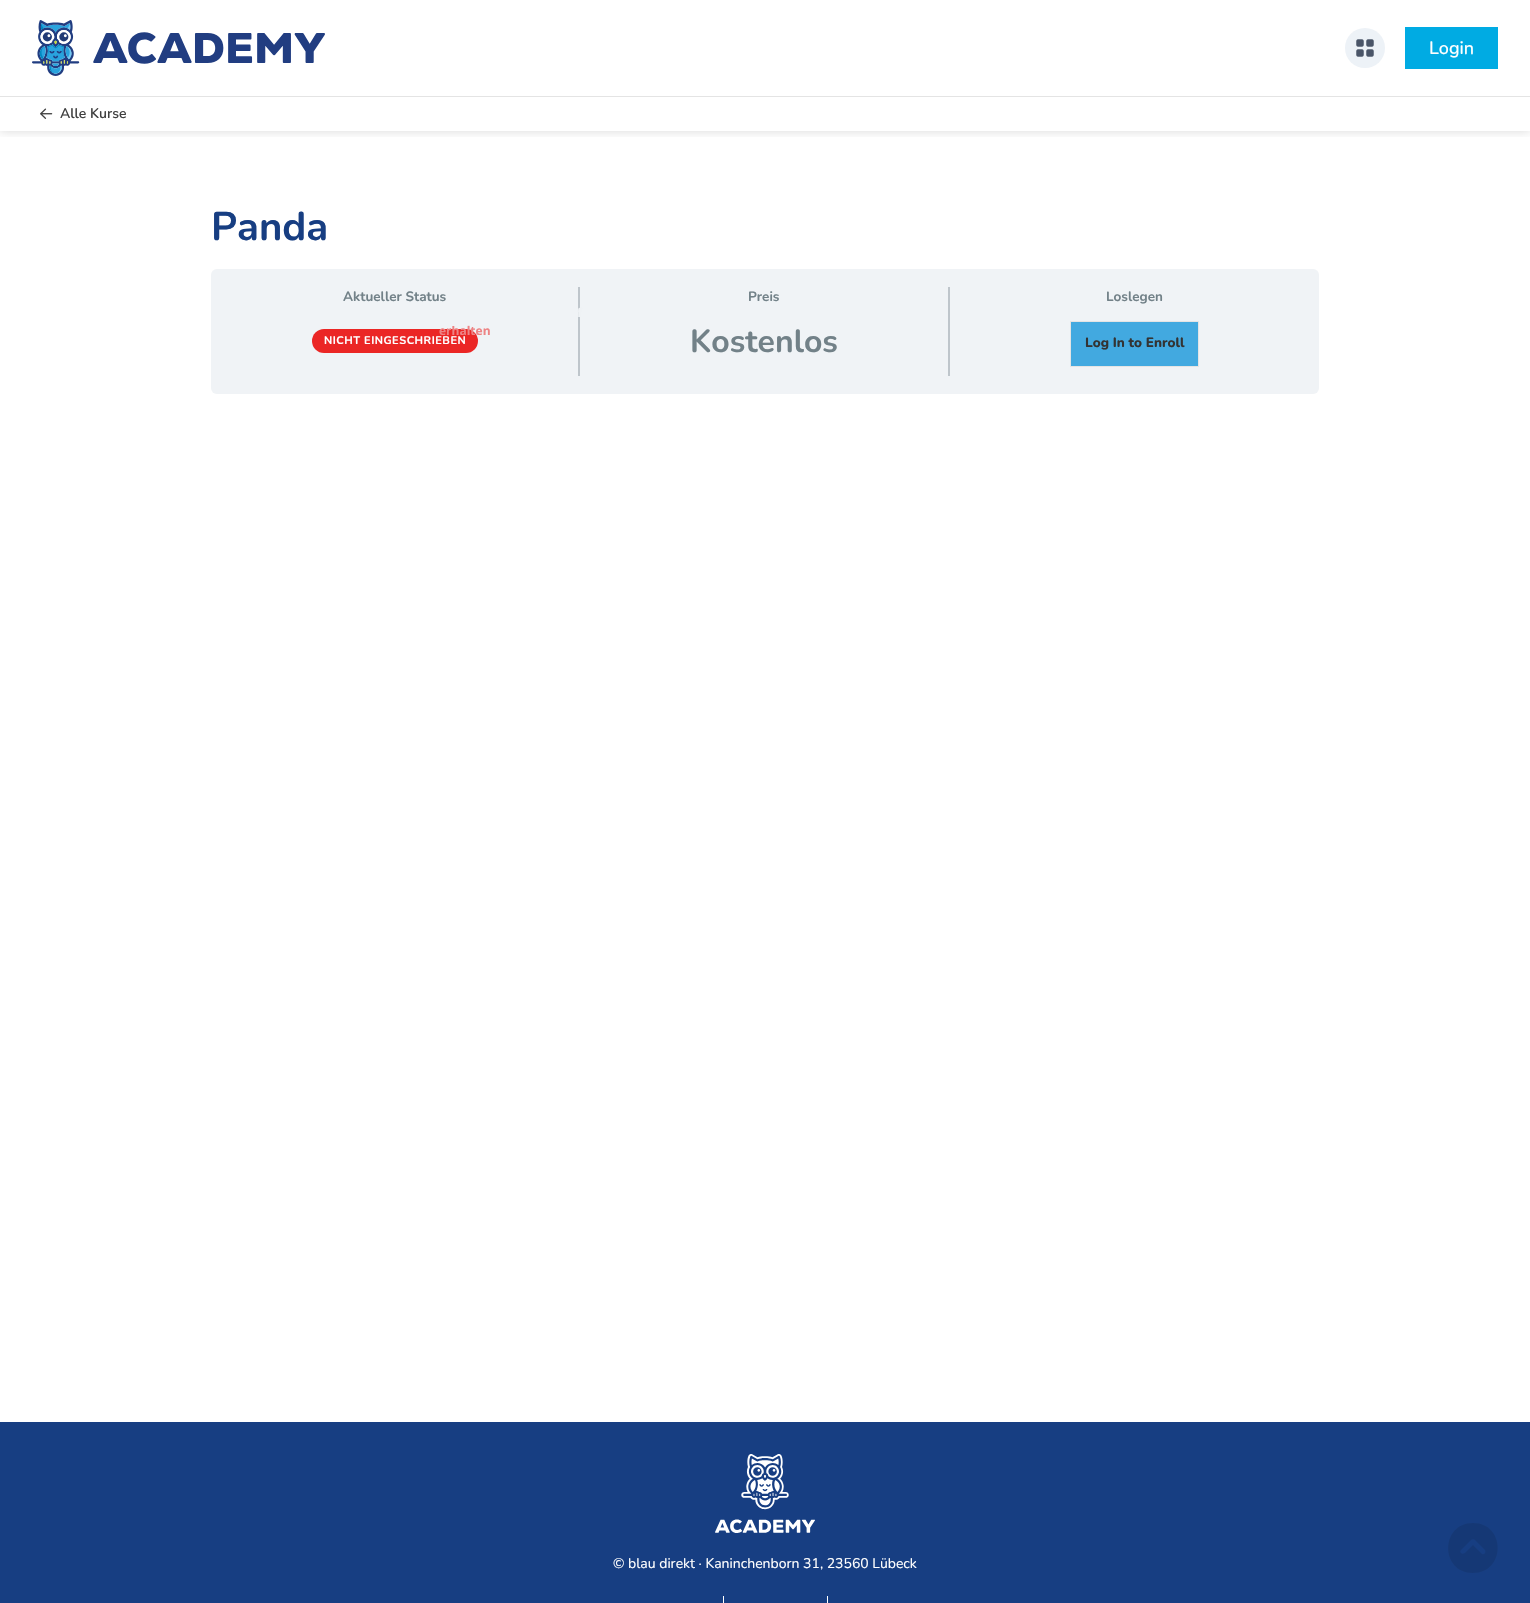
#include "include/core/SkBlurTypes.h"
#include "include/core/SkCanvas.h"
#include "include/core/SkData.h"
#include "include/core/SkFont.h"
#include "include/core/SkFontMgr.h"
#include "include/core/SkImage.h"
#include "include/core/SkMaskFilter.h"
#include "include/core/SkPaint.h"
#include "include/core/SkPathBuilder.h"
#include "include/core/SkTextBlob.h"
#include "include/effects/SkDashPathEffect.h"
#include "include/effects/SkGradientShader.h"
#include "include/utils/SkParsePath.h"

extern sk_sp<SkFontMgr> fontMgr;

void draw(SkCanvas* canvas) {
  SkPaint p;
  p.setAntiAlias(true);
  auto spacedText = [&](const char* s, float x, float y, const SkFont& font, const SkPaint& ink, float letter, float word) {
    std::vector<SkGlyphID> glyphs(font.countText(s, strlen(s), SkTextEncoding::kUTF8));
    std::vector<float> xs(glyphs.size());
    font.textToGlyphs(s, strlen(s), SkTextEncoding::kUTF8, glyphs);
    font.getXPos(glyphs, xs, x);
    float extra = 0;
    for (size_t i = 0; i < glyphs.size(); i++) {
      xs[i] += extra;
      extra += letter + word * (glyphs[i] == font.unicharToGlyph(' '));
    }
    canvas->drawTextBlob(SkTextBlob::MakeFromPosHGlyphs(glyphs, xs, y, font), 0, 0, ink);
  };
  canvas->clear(SK_ColorWHITE);
  canvas->save();
  canvas->clipRect(SkRect::MakeLTRB(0, 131, 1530, 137));
  p.setColor(SkColorSetARGB(38, 0, 0, 0));
  p.setMaskFilter(SkMaskFilter::MakeBlur(kNormal_SkBlurStyle, 5));
  canvas->drawRect(SkRect::MakeLTRB(0, 0, 1530, 131), p);
  p.setMaskFilter(nullptr);
  canvas->restore();
  p.setColor(SkColorSetRGB(228, 228, 228));
  canvas->drawRect(SkRect::MakeLTRB(0, 96, 1530, 97), p);
  canvas->drawImageRect(SkImages::DeferredFromEncodedData(SkData::MakeFromFileName("images/1.png")), SkRect::MakeLTRB(32, 20, 325, 76), SkSamplingOptions());
  p.setColor(SkColorSetRGB(237, 242, 247));
  canvas->drawCircle(1365, 48, 20, p);
  canvas->drawImageRect(SkImages::DeferredFromEncodedData(SkData::MakeFromFileName("images/2.png")), SkRect::MakeLTRB(1356, 39, 1374, 57), SkSamplingOptions());
  p.setColor(SkColorSetRGB(0, 171, 227));
  canvas->drawRect(SkRect::MakeLTRB(1405, 27, 1498, 69), p);
  canvas->drawImageRect(SkImages::DeferredFromEncodedData(SkData::MakeFromFileName("images/3.png")), SkRect::MakeLTRB(40, 108, 53, 119), SkSamplingOptions());
  p.setColor(SkColorSetRGB(240, 243, 246));
  canvas->drawRoundRect(SkRect::MakeLTRB(211, 269, 1319, 394), 6, 6, p);
  p.setColor(SkColorSetRGB(190, 197, 203));
  canvas->drawRect(SkRect::MakeLTRB(578, 287, 580, 376), p);
  p.setColor(SkColorSetRGB(235, 38, 37));
  canvas->drawRoundRect(SkRect::MakeLTRB(312, 329, 478, 353), 12, 12, p);
  p.setColor(SkColorSetRGB(190, 197, 203));
  canvas->drawRect(SkRect::MakeLTRB(948, 287, 950, 376), p);
  p.setColor(SkColorSetRGB(66, 169, 224));
  canvas->drawRect(SkRect::MakeLTRB(1070.5f, 321.5f, 1198.5f, 366.5f), p);
  p.setStyle(SkPaint::kStroke_Style);
  p.setStrokeWidth(1);
  p.setColor(SkColorSetRGB(228, 228, 228));
  canvas->drawRect(SkRect::MakeLTRB(1070.5f, 321.5f, 1198.5f, 366.5f), p);
  p.setStyle(SkPaint::kFill_Style);
  p.setColor(SkColorSetRGB(23, 62, 130));
  canvas->drawRect(SkRect::MakeLTRB(0, 1422, 1530, 1603), p);
  canvas->drawImageRect(SkImages::DeferredFromEncodedData(SkData::MakeFromFileName("images/4.png")), SkRect::MakeLTRB(715, 1454, 815, 1533), SkSamplingOptions());
  p.setColor(SkColorSetRGB(21, 56, 117));
  canvas->drawPath(SkPathBuilder().moveTo(1473, 1573).cubicTo(1506, 1573, 1506, 1523, 1473, 1523).cubicTo(1440, 1523, 1440, 1573, 1473, 1573).close().moveTo(1485, 1550).cubicTo(1486, 1552, 1485, 1555, 1482, 1554).lineTo(1473, 1545).lineTo(1465, 1553).cubicTo(1463, 1554, 1462, 1554, 1461, 1553).cubicTo(1460, 1552, 1460, 1551, 1461, 1550).lineTo(1471, 1540).cubicTo(1472, 1539, 1474, 1539, 1475, 1540).close().detach(), p);
  p.setColor(SK_ColorWHITE);
  canvas->drawRect(SkRect::MakeLTRB(723, 1596, 724, 1603), p);
  canvas->drawRect(SkRect::MakeLTRB(827, 1596, 828, 1603), p);
  SkFont font1(fontMgr->matchFamilyStyle("Nunito", SkFontStyle(500, SkFontStyle::kNormal_Width, SkFontStyle::kUpright_Slant)), 18);
  font1.setSubpixel(true);
  canvas->drawString("Login", 1429, 54, font1, p);
  SkFont font2(fontMgr->matchFamilyStyle("Nunito", SkFontStyle(600, SkFontStyle::kNormal_Width, SkFontStyle::kUpright_Slant)), 14);
  font2.setSubpixel(true);
  p.setColor(SkColorSetRGB(64, 64, 64));
  canvas->drawString("Alle Kurse", 60, 118, font2, p);
  SkFont font3(fontMgr->matchFamilyStyle("Nunito", SkFontStyle::Bold()), 40);
  font3.setSubpixel(true);
  p.setColor(SkColorSetRGB(23, 62, 130));
  canvas->drawString("Panda", 211, 240, font3, p);
  SkFont font4(fontMgr->matchFamilyStyle("Nunito", SkFontStyle::Bold()), 13.5f);
  font4.setSubpixel(true);
  p.setColor(SkColorSetRGB(114, 129, 136));
  canvas->drawString("Aktueller Status", 343, 301, font4, p);
  SkFont font5(fontMgr->matchFamilyStyle("Nunito", SkFontStyle::Bold()), 11);
  font5.setSubpixel(true);
  p.setColor(SK_ColorWHITE);
  spacedText("NICHT EINGESCHRIEBEN", 324, 344, font5, p, 0.5f, 0);
  p.setColor(SkColorSetRGB(114, 129, 136));
  canvas->drawString("Preis", 748, 301, font4, p);
  SkFont font6(fontMgr->matchFamilyStyle("Nunito", SkFontStyle::Bold()), 32);
  font6.setSubpixel(true);
  canvas->drawString("Kostenlos", 690, 352, font6, p);
  canvas->drawString("Loslegen", 1106, 301, font4, p);
  SkFont font7(fontMgr->matchFamilyStyle("Nunito", SkFontStyle(800, SkFontStyle::kNormal_Width, SkFontStyle::kUpright_Slant)), 13.5f);
  font7.setSubpixel(true);
  p.setColor(SkColorSetRGB(51, 51, 51));
  canvas->drawString("Log In to Enroll", 1085, 347, font7, p);
  SkFont font8(fontMgr->matchFamilyStyle("Open Sans", SkFontStyle::Bold()), 12);
  font8.setSubpixel(true);
  p.setColor(SkColorSetRGB(239, 242, 245));
  canvas->drawString("f", 577, 317, font8, p);
  p.setColor(SkColorSetRGB(237, 131, 132));
  canvas->drawString("erhalten", 439, 335, font8, p);
  SkFont font9(fontMgr->matchFamilyStyle("Nunito", SkFontStyle::Normal()), 14);
  font9.setSubpixel(true);
  p.setColor(SK_ColorWHITE);
  canvas->drawString("© blau direkt · Kaninchenborn 31, 23560 Lübeck", 613, 1568, font9, p);
}
